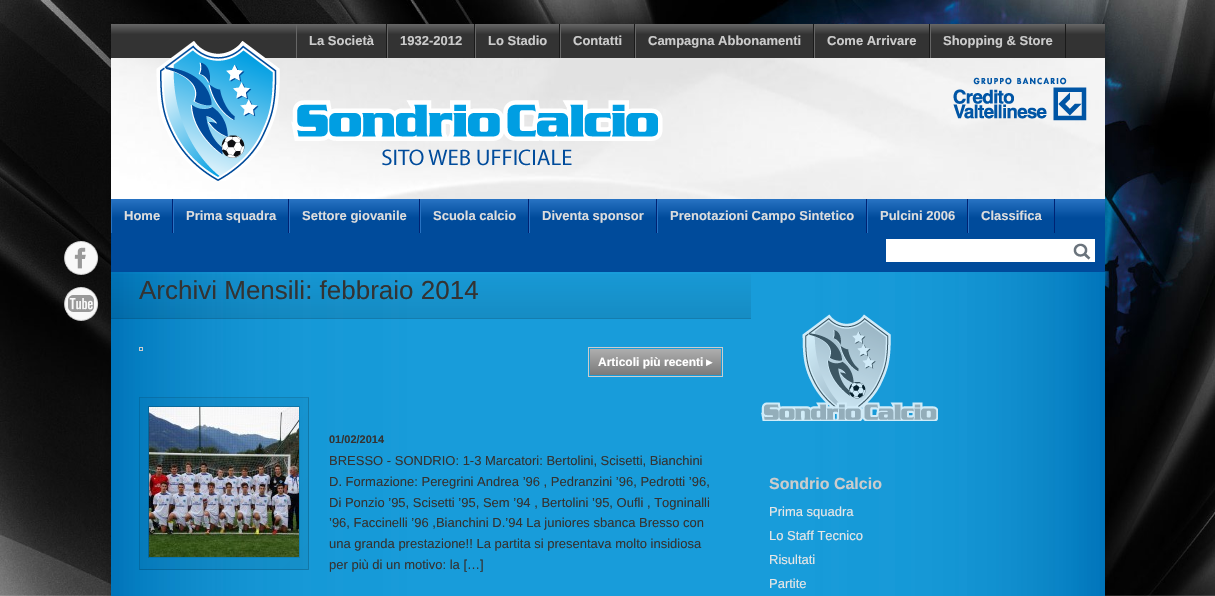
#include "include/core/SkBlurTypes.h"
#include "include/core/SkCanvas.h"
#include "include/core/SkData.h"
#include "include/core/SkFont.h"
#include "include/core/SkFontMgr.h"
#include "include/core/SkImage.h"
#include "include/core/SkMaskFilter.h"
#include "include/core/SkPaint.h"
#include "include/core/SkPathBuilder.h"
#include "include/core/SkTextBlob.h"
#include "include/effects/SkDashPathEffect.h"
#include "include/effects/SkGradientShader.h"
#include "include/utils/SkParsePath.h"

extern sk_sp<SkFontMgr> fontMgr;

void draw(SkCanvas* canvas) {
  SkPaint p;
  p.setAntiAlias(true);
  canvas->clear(SK_ColorWHITE);
  canvas->drawImageRect(SkImages::DeferredFromEncodedData(SkData::MakeFromFileName("images/1.png")), SkRect::MakeLTRB(0, 0, 1215, 596), SkSamplingOptions());
  p.setColor(SkColorSetARGB(51, 0, 0, 0));
  p.setMaskFilter(SkMaskFilter::MakeBlur(kNormal_SkBlurStyle, 6));
  canvas->drawRect(SkRect::MakeLTRB(111, 24, 1105, 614), p);
  p.setMaskFilter(nullptr);
  {
    const SkColor colors[] = {SkColorSetRGB(102, 102, 102), SkColorSetRGB(51, 51, 51)};
    const float stops[] = {0, 0.3f};
    const SkPoint ends[] = {{111, 24}, {111, 58}};
    p.setShader(SkGradientShader::MakeLinear(ends, colors, stops, 2, SkTileMode::kClamp));
    p.setAlpha(255);
  }
  canvas->drawRect(SkRect::MakeLTRB(111, 24, 1105, 58), p);
  canvas->drawImageRect(SkImages::DeferredFromEncodedData(SkData::MakeFromFileName("images/2.png")), SkRect::MakeLTRB(111, 58, 1105, 199), SkSamplingOptions());
  canvas->drawImageRect(SkImages::DeferredFromEncodedData(SkData::MakeFromFileName("images/3.png")), SkRect::MakeLTRB(156, 41, 663, 181), SkSamplingOptions());
  p.setShader(nullptr);
  p.setColor(SkColorSetRGB(26, 26, 26));
  canvas->drawRect(SkRect::MakeLTRB(386, 24, 387, 58), p);
  p.setColor(SkColorSetRGB(102, 102, 102));
  canvas->drawRect(SkRect::MakeLTRB(296, 24, 297, 58), p);
  p.setColor(SkColorSetRGB(26, 26, 26));
  canvas->drawRect(SkRect::MakeLTRB(474, 24, 475, 58), p);
  p.setColor(SkColorSetRGB(102, 102, 102));
  canvas->drawRect(SkRect::MakeLTRB(387, 24, 388, 58), p);
  p.setColor(SkColorSetRGB(26, 26, 26));
  canvas->drawRect(SkRect::MakeLTRB(559, 24, 560, 58), p);
  p.setColor(SkColorSetRGB(102, 102, 102));
  canvas->drawRect(SkRect::MakeLTRB(475, 24, 476, 58), p);
  p.setColor(SkColorSetRGB(26, 26, 26));
  canvas->drawRect(SkRect::MakeLTRB(634, 24, 635, 58), p);
  p.setColor(SkColorSetRGB(102, 102, 102));
  canvas->drawRect(SkRect::MakeLTRB(560, 24, 561, 58), p);
  p.setColor(SkColorSetRGB(26, 26, 26));
  canvas->drawRect(SkRect::MakeLTRB(813, 24, 814, 58), p);
  p.setColor(SkColorSetRGB(102, 102, 102));
  canvas->drawRect(SkRect::MakeLTRB(635, 24, 636, 58), p);
  p.setColor(SkColorSetRGB(26, 26, 26));
  canvas->drawRect(SkRect::MakeLTRB(929, 24, 930, 58), p);
  p.setColor(SkColorSetRGB(102, 102, 102));
  canvas->drawRect(SkRect::MakeLTRB(814, 24, 815, 58), p);
  p.setColor(SkColorSetRGB(26, 26, 26));
  canvas->drawRect(SkRect::MakeLTRB(1065, 24, 1066, 58), p);
  p.setColor(SkColorSetRGB(102, 102, 102));
  canvas->drawRect(SkRect::MakeLTRB(930, 24, 931, 58), p);
  canvas->drawImageRect(SkImages::DeferredFromEncodedData(SkData::MakeFromFileName("images/4.png")), SkRect::MakeLTRB(953, 77, 1087, 121), SkSamplingOptions());
  canvas->drawImageRect(SkImages::DeferredFromEncodedData(SkData::MakeFromFileName("images/5.png")), SkRect::MakeLTRB(64, 241, 99, 275), SkSamplingOptions());
  canvas->drawImageRect(SkImages::DeferredFromEncodedData(SkData::MakeFromFileName("images/6.png")), SkRect::MakeLTRB(64, 287, 99, 321), SkSamplingOptions());
  {
    const SkColor colors[] = {SkColorSetRGB(40, 115, 195), SkColorSetRGB(0, 75, 155)};
    const float stops[] = {0, 0.3f};
    const SkPoint ends[] = {{111, 199}, {111, 262}};
    p.setShader(SkGradientShader::MakeLinear(ends, colors, stops, 2, SkTileMode::kClamp));
    p.setAlpha(255);
  }
  canvas->drawRect(SkRect::MakeLTRB(111, 199, 1105, 262), p);
  p.setShader(nullptr);
  p.setColor(SkColorSetRGB(0, 35, 115));
  canvas->drawRect(SkRect::MakeLTRB(172, 199, 173, 233), p);
  p.setColor(SkColorSetRGB(40, 115, 195));
  canvas->drawRect(SkRect::MakeLTRB(111, 199, 112, 233), p);
  p.setColor(SkColorSetRGB(0, 35, 115));
  canvas->drawRect(SkRect::MakeLTRB(288, 199, 289, 233), p);
  p.setColor(SkColorSetRGB(40, 115, 195));
  canvas->drawRect(SkRect::MakeLTRB(173, 199, 174, 233), p);
  p.setColor(SkColorSetRGB(0, 35, 115));
  canvas->drawRect(SkRect::MakeLTRB(419, 199, 420, 233), p);
  p.setColor(SkColorSetRGB(40, 115, 195));
  canvas->drawRect(SkRect::MakeLTRB(289, 199, 290, 233), p);
  p.setColor(SkColorSetRGB(0, 35, 115));
  canvas->drawRect(SkRect::MakeLTRB(528, 199, 529, 233), p);
  p.setColor(SkColorSetRGB(40, 115, 195));
  canvas->drawRect(SkRect::MakeLTRB(420, 199, 421, 233), p);
  p.setColor(SkColorSetRGB(0, 35, 115));
  canvas->drawRect(SkRect::MakeLTRB(656, 199, 657, 233), p);
  p.setColor(SkColorSetRGB(40, 115, 195));
  canvas->drawRect(SkRect::MakeLTRB(529, 199, 530, 233), p);
  p.setColor(SkColorSetRGB(0, 35, 115));
  canvas->drawRect(SkRect::MakeLTRB(866, 199, 867, 233), p);
  p.setColor(SkColorSetRGB(40, 115, 195));
  canvas->drawRect(SkRect::MakeLTRB(657, 199, 658, 233), p);
  p.setColor(SkColorSetRGB(0, 35, 115));
  canvas->drawRect(SkRect::MakeLTRB(967, 199, 968, 233), p);
  p.setColor(SkColorSetRGB(40, 115, 195));
  canvas->drawRect(SkRect::MakeLTRB(867, 199, 868, 233), p);
  p.setColor(SkColorSetRGB(0, 35, 115));
  canvas->drawRect(SkRect::MakeLTRB(1054, 199, 1055, 233), p);
  p.setColor(SkColorSetRGB(40, 115, 195));
  canvas->drawRect(SkRect::MakeLTRB(968, 199, 969, 233), p);
  p.setColor(SK_ColorWHITE);
  canvas->drawRect(SkRect::MakeLTRB(886, 239, 1095, 262), p);
  canvas->drawImageRect(SkImages::DeferredFromEncodedData(SkData::MakeFromFileName("images/7.png")), SkRect::MakeLTRB(1073, 243, 1091, 260), SkSamplingOptions());
  canvas->drawImageRect(SkImages::DeferredFromEncodedData(SkData::MakeFromFileName("images/9.png")), SkRect::MakeLTRB(111, 272, 1105, 596), SkSamplingOptions());
  {
    const SkColor colors[] = {SkColorSetARGB(0, 0, 0, 0), SkColorSetARGB(26, 0, 0, 0)};
    const float stops[] = {0, 1};
    const SkPoint ends[] = {{111, 262}, {111, 318}};
    p.setShader(SkGradientShader::MakeLinear(ends, colors, stops, 2, SkTileMode::kClamp));
    p.setAlpha(255);
  }
  canvas->drawRect(SkRect::MakeLTRB(111, 274, 751, 318), p);
  p.setShader(nullptr);
  p.setColor(SkColorSetARGB(51, 0, 0, 0));
  canvas->drawRect(SkRect::MakeLTRB(111, 318, 751, 319), p);
  p.setStyle(SkPaint::kStroke_Style);
  p.setStrokeWidth(1);
  p.setColor(SkColorSetRGB(204, 204, 204));
  canvas->drawRect(SkRect::MakeLTRB(139.5f, 347.5f, 142.5f, 350.5f), p);
  canvas->drawRect(SkRect::MakeLTRB(588.5f, 347.5f, 722.5f, 376.5f), p);
  p.setStyle(SkPaint::kFill_Style);
  {
    const SkColor colors[] = {SkColorSetRGB(174, 174, 174), SkColorSetRGB(122, 122, 122)};
    const float stops[] = {0, 1};
    const SkPoint ends[] = {{590, 349}, {590, 375}};
    p.setShader(SkGradientShader::MakeLinear(ends, colors, stops, 2, SkTileMode::kClamp));
    p.setAlpha(255);
  }
  canvas->drawRect(SkRect::MakeLTRB(590, 349, 721, 375), p);
  {
    const SkColor colors[] = {SkColorSetRGB(4, 123, 189), SkColorSetRGB(4, 118, 181)};
    const float stops[] = {0, 1};
    const SkPoint ends[] = {{-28, 227}, {140, 398}};
    p.setShader(SkGradientShader::MakeLinear(ends, colors, stops, 2, SkTileMode::kClamp));
    p.setAlpha(255);
  }
  canvas->drawRect(SkRect::MakeLTRB(139, 397, 140, 398), p);
  {
    const SkColor colors[] = {SkColorSetRGB(23, 150, 211), SkColorSetRGB(22, 144, 202)};
    const float stops[] = {0, 1};
    const SkPoint ends[] = {{308, 227}, {476, 398}};
    p.setShader(SkGradientShader::MakeLinear(ends, colors, stops, 2, SkTileMode::kClamp));
    p.setAlpha(255);
  }
  canvas->drawRect(SkRect::MakeLTRB(308, 397, 309, 398), p);
  {
    const SkColor colors[] = {SkColorSetRGB(4, 123, 189), SkColorSetRGB(4, 118, 181)};
    const float stops[] = {0, 1};
    const SkPoint ends[] = {{-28, 398}, {140, 569}};
    p.setShader(SkGradientShader::MakeLinear(ends, colors, stops, 2, SkTileMode::kClamp));
    p.setAlpha(255);
  }
  canvas->drawRect(SkRect::MakeLTRB(139, 398, 140, 569), p);
  {
    const SkColor colors[] = {SkColorSetRGB(23, 150, 211), SkColorSetRGB(22, 144, 202)};
    const float stops[] = {0, 1};
    const SkPoint ends[] = {{308, 398}, {476, 569}};
    p.setShader(SkGradientShader::MakeLinear(ends, colors, stops, 2, SkTileMode::kClamp));
    p.setAlpha(255);
  }
  canvas->drawRect(SkRect::MakeLTRB(308, 398, 309, 569), p);
  {
    const SkColor colors[] = {SkColorSetRGB(4, 123, 189), SkColorSetRGB(4, 118, 181)};
    const float stops[] = {0, 1};
    const SkPoint ends[] = {{-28, 569}, {140, 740}};
    p.setShader(SkGradientShader::MakeLinear(ends, colors, stops, 2, SkTileMode::kClamp));
    p.setAlpha(255);
  }
  canvas->drawRect(SkRect::MakeLTRB(139, 569, 140, 570), p);
  {
    const SkColor colors[] = {SkColorSetRGB(23, 150, 211), SkColorSetRGB(22, 144, 202)};
    const float stops[] = {0, 1};
    const SkPoint ends[] = {{308, 569}, {476, 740}};
    p.setShader(SkGradientShader::MakeLinear(ends, colors, stops, 2, SkTileMode::kClamp));
    p.setAlpha(255);
  }
  canvas->drawRect(SkRect::MakeLTRB(308, 569, 309, 570), p);
  p.setShader(nullptr);
  p.setColor(SkColorSetARGB(26, 0, 0, 0));
  canvas->drawPath(SkPathBuilder().moveTo(139, 397).lineTo(309, 397).lineTo(308, 398).lineTo(140, 398).close().detach(), p);
  p.setColor(SkColorSetARGB(51, 0, 0, 0));
  canvas->drawPath(SkPathBuilder().moveTo(309, 397).lineTo(309, 570).lineTo(308, 569).lineTo(308, 398).close().detach(), p);
  canvas->drawPath(SkPathBuilder().moveTo(309, 570).lineTo(139, 570).lineTo(140, 569).lineTo(308, 569).close().detach(), p);
  p.setColor(SkColorSetARGB(26, 0, 0, 0));
  canvas->drawPath(SkPathBuilder().moveTo(139, 570).lineTo(139, 397).lineTo(140, 398).lineTo(140, 569).close().detach(), p);
  p.setColor(SkColorSetARGB(51, 0, 0, 0));
  canvas->drawPath(SkPathBuilder().moveTo(148, 406).lineTo(300, 406).lineTo(299, 407).lineTo(149, 407).close().detach(), p);
  p.setColor(SkColorSetARGB(26, 0, 0, 0));
  canvas->drawPath(SkPathBuilder().moveTo(300, 406).lineTo(300, 558).lineTo(299, 557).lineTo(299, 407).close().detach(), p);
  canvas->drawPath(SkPathBuilder().moveTo(300, 558).lineTo(148, 558).lineTo(149, 557).lineTo(299, 557).close().detach(), p);
  p.setColor(SkColorSetARGB(51, 0, 0, 0));
  canvas->drawPath(SkPathBuilder().moveTo(148, 558).lineTo(148, 406).lineTo(149, 407).lineTo(149, 557).close().detach(), p);
  canvas->drawImageRect(SkImages::DeferredFromEncodedData(SkData::MakeFromFileName("images/8.png")), SkRect::MakeLTRB(149, 407, 299, 557), SkSamplingOptions());
  p.setColor(SkColorSetRGB(0, 75, 155));
  canvas->drawRect(SkRect::MakeLTRB(111, 262, 1105, 272), p);
  canvas->drawImageRect(SkImages::DeferredFromEncodedData(SkData::MakeFromFileName("images/10.png")), SkRect::MakeLTRB(761, 314, 938, 421), SkSamplingOptions());
  SkFont font1(fontMgr->matchFamilyStyle("Liberation Sans", SkFontStyle::Bold()), 13);
  font1.setSubpixel(true);
  p.setColor(SkColorSetRGB(204, 204, 204));
  canvas->drawString("La Società", 309, 45, font1, p);
  canvas->drawString("1932-2012", 400, 45, font1, p);
  canvas->drawString("Lo Stadio", 488, 45, font1, p);
  canvas->drawString("Contatti", 573, 45, font1, p);
  canvas->drawString("Campagna Abbonamenti", 648, 45, font1, p);
  canvas->drawString("Come Arrivare", 827, 45, font1, p);
  canvas->drawString("Shopping & Store", 943, 45, font1, p);
  p.setColor(SkColorSetRGB(221, 221, 221));
  canvas->drawString("Home", 124, 220, font1, p);
  canvas->drawString("Prima squadra", 186, 220, font1, p);
  canvas->drawString("Settore giovanile", 302, 220, font1, p);
  canvas->drawString("Scuola calcio", 433, 220, font1, p);
  canvas->drawString("Diventa sponsor", 542, 220, font1, p);
  canvas->drawString("Prenotazioni Campo Sintetico", 670, 220, font1, p);
  canvas->drawString("Pulcini 2006", 880, 220, font1, p);
  canvas->drawString("Classifica", 981, 220, font1, p);
  SkFont font2(fontMgr->matchFamilyStyle("Liberation Sans", SkFontStyle::Normal()), 26);
  font2.setSubpixel(true);
  p.setColor(SkColorSetRGB(51, 51, 51));
  canvas->drawString("Archivi Mensili: febbraio 2014", 139, 299, font2, p);
  SkFont font3(fontMgr->matchFamilyStyle("Liberation Sans", SkFontStyle::Bold()), 12);
  font3.setSubpixel(true);
  p.setColor(SK_ColorWHITE);
  canvas->drawString("Articoli più recenti", 598, 366, font3, p);
  SkFont font4(fontMgr->matchFamilyStyle("DejaVu Sans", SkFontStyle::Bold()), 12);
  font4.setSubpixel(true);
  canvas->drawString("▸", 706, 366, font4, p);
  SkFont font5(fontMgr->matchFamilyStyle("Liberation Sans", SkFontStyle::Bold()), 11);
  font5.setSubpixel(true);
  p.setColor(SkColorSetRGB(51, 51, 51));
  canvas->drawString("01/02/2014", 329, 443, font5, p);
  SkFont font6(fontMgr->matchFamilyStyle("Liberation Sans", SkFontStyle::Normal()), 13);
  font6.setSubpixel(true);
  canvas->drawString("BRESSO - SONDRIO: 1-3 Marcatori: Bertolini, Scisetti, Bianchini", 329, 465, font6, p);
  canvas->drawString("D. Formazione: Peregrini Andrea ’96 , Pedranzini ’96, Pedrotti ’96,", 329, 486, font6, p);
  canvas->drawString("Di Ponzio ’95, Scisetti ’95, Sem ’94 , Bertolini ’95, Oufli , Togninalli", 329, 507, font6, p);
  canvas->drawString("’96, Faccinelli ’96 ,Bianchini D.’94 La juniores sbanca Bresso con", 329, 527, font6, p);
  canvas->drawString("una granda prestazione!! La partita si presentava molto insidiosa", 329, 548, font6, p);
  canvas->drawString("per più di un motivo: la […]", 329, 569, font6, p);
  SkFont font7(fontMgr->matchFamilyStyle("Liberation Sans", SkFontStyle::Bold()), 16);
  font7.setSubpixel(true);
  p.setColor(SkColorSetRGB(204, 204, 204));
  canvas->drawString("Sondrio Calcio", 769, 489, font7, p);
  p.setColor(SkColorSetRGB(230, 230, 230));
  canvas->drawString("Prima squadra", 769, 516, font6, p);
  canvas->drawString("Lo Staff Tecnico", 769, 540, font6, p);
  canvas->drawString("Risultati", 769, 564, font6, p);
  canvas->drawString("Partite", 769, 588, font6, p);
}
